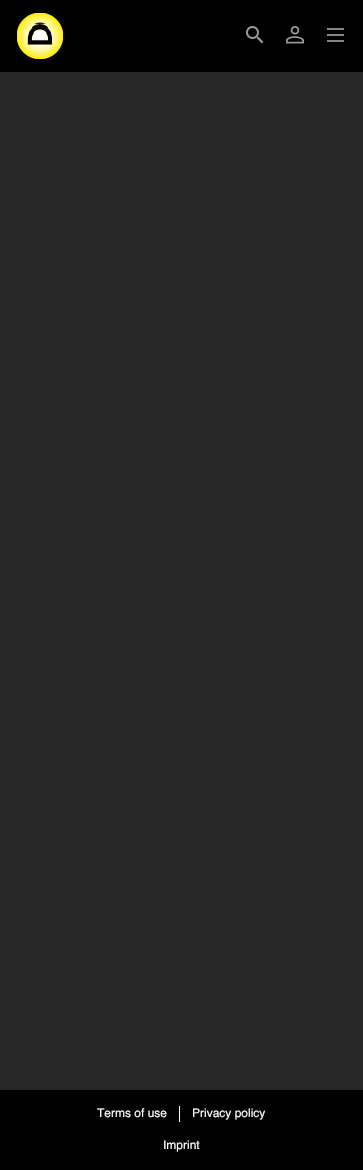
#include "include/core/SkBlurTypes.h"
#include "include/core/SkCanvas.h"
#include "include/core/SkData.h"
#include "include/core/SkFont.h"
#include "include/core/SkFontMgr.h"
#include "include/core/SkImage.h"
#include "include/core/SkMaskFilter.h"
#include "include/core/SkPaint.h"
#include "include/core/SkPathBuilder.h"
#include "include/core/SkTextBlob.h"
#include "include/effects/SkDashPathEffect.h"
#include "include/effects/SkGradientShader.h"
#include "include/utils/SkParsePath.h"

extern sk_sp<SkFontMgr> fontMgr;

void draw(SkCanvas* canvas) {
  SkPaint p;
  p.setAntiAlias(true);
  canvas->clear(SkColorSetRGB(38, 38, 38));
  p.setColor(SK_ColorBLACK);
  canvas->drawRect(SkRect::MakeLTRB(0, 0, 363, 72), p);
  canvas->drawImageRect(SkImages::DeferredFromEncodedData(SkData::MakeFromFileName("images/1.png")), SkRect::MakeLTRB(17, 13, 63, 59), SkSamplingOptions());
  canvas->drawImageRect(SkImages::DeferredFromEncodedData(SkData::MakeFromFileName("images/2.png")), SkRect::MakeLTRB(246, 26, 264, 44), SkSamplingOptions());
  canvas->drawImageRect(SkImages::DeferredFromEncodedData(SkData::MakeFromFileName("images/3.png")), SkRect::MakeLTRB(286, 26, 304, 44), SkSamplingOptions());
  p.setColor(SkColorSetRGB(132, 132, 132));
  canvas->drawRect(SkRect::MakeLTRB(327, 28, 344, 30), p);
  canvas->drawRect(SkRect::MakeLTRB(327, 34, 344, 36), p);
  canvas->drawRect(SkRect::MakeLTRB(327, 40, 344, 42), p);
  p.setColor(SK_ColorBLACK);
  canvas->drawRect(SkRect::MakeLTRB(0, 1090, 363, 1170), p);
  p.setColor(SK_ColorWHITE);
  canvas->drawRect(SkRect::MakeLTRB(179, 1106, 180, 1122), p);
  SkFont font1(fontMgr->matchFamilyStyle("Helvetica", SkFontStyle::Normal()), 12);
  font1.setSubpixel(true);
  canvas->drawString("Terms of use", 97, 1117, font1, p);
  canvas->drawString("Privacy policy", 192, 1117, font1, p);
  canvas->drawString("Imprint", 163, 1149, font1, p);
}
